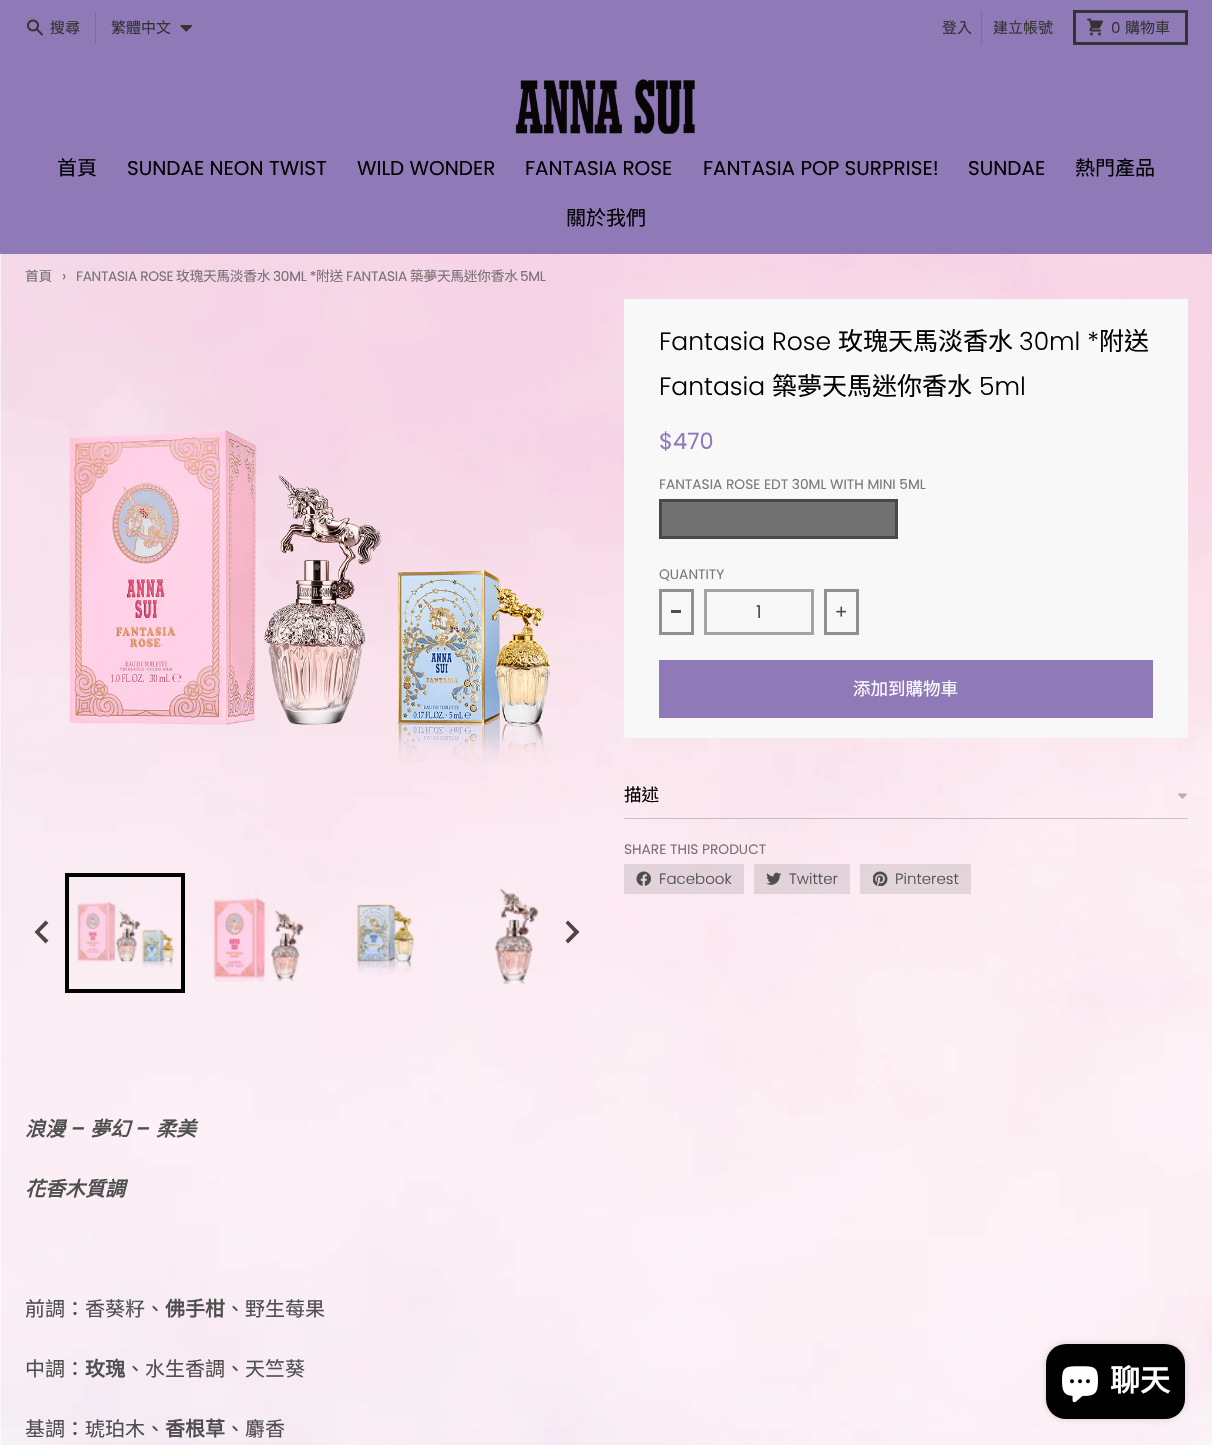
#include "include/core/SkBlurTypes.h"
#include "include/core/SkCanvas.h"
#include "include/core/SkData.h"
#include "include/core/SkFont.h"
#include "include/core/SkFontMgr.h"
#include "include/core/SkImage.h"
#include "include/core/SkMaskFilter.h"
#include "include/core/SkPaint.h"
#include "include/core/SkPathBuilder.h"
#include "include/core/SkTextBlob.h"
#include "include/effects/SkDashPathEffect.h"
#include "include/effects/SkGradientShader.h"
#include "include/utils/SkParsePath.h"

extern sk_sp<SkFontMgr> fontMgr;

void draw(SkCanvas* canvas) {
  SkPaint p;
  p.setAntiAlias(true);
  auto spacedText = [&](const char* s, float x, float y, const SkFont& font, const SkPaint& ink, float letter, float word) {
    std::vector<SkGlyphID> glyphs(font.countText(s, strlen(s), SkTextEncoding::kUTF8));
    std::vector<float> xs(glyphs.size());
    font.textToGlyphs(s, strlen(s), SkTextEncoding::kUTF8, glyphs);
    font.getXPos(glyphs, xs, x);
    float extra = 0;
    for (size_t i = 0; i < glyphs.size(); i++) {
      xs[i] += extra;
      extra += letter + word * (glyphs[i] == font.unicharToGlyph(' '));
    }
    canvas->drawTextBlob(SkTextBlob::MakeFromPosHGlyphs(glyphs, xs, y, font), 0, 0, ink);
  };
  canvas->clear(SK_ColorWHITE);
  canvas->drawImageRect(SkImages::DeferredFromEncodedData(SkData::MakeFromFileName("images/1.png")), SkRect::MakeLTRB(0, 254, 1212, 1445), SkSamplingOptions());
  p.setColor(SkColorSetRGB(143, 121, 183));
  canvas->drawRect(SkRect::MakeLTRB(0, 0, 1212, 254), p);
  canvas->drawImageRect(SkImages::DeferredFromEncodedData(SkData::MakeFromFileName("images/2.png")), SkRect::MakeLTRB(27, 19, 43, 36), SkSamplingOptions());
  p.setColor(SkColorSetRGB(125, 107, 157));
  canvas->drawRect(SkRect::MakeLTRB(95, 13, 96, 43), p);
  canvas->drawImageRect(SkImages::DeferredFromEncodedData(SkData::MakeFromFileName("images/3.png")), SkRect::MakeLTRB(180, 25, 192, 32), SkSamplingOptions());
  canvas->drawRect(SkRect::MakeLTRB(981, 13, 982, 43), p);
  p.setStyle(SkPaint::kStroke_Style);
  p.setStrokeWidth(3);
  p.setColor(SkColorSetRGB(51, 51, 51));
  canvas->drawRect(SkRect::MakeLTRB(1074.5f, 11.5f, 1186.5f, 43.5f), p);
  canvas->drawImageRect(SkImages::DeferredFromEncodedData(SkData::MakeFromFileName("images/4.png")), SkRect::MakeLTRB(1087, 18, 1103, 36), SkSamplingOptions());
  canvas->drawImageRect(SkImages::DeferredFromEncodedData(SkData::MakeFromFileName("images/5.png")), SkRect::MakeLTRB(515, 79, 695, 134), SkSamplingOptions());
  canvas->drawImageRect(SkImages::DeferredFromEncodedData(SkData::MakeFromFileName("images/6.png")), SkRect::MakeLTRB(69, 430, 550, 762), SkSamplingOptions());
  p.setStrokeWidth(4);
  p.setColor(SK_ColorBLACK);
  canvas->drawRect(SkRect::MakeLTRB(67, 875, 183, 991), p);
  canvas->drawImageRect(SkImages::DeferredFromEncodedData(SkData::MakeFromFileName("images/7.png")), SkRect::MakeLTRB(77, 902, 174, 968), SkSamplingOptions());
  canvas->drawImageRect(SkImages::DeferredFromEncodedData(SkData::MakeFromFileName("images/8.png")), SkRect::MakeLTRB(213, 897, 304, 982), SkSamplingOptions());
  canvas->drawImageRect(SkImages::DeferredFromEncodedData(SkData::MakeFromFileName("images/9.png")), SkRect::MakeLTRB(357, 903, 414, 975), SkSamplingOptions());
  canvas->drawImageRect(SkImages::DeferredFromEncodedData(SkData::MakeFromFileName("images/10.png")), SkRect::MakeLTRB(494, 888, 539, 985), SkSamplingOptions());
  p.setStyle(SkPaint::kFill_Style);
  p.setColor(SkColorSetARGB(179, 0, 0, 0));
  canvas->drawPath(SkPathBuilder().moveTo(45.5f, 920.5f).lineTo(48.5f, 923).lineTo(39.5f, 932).lineTo(48.5f, 940.5f).lineTo(45.5f, 943.5f).lineTo(34.5f, 932).close().detach(), p);
  p.setColor(SkColorSetRGB(76, 70, 73));
  canvas->drawPath(SkPathBuilder().moveTo(568, 920.5f).lineTo(565.5f, 923).lineTo(574, 932).lineTo(565.5f, 940.5f).lineTo(568, 943.5f).lineTo(579.5f, 932).close().detach(), p);
  p.setColor(SkColorSetRGB(248, 248, 248));
  canvas->drawRect(SkRect::MakeLTRB(624, 299, 1188, 738), p);
  p.setColor(SkColorSetRGB(113, 113, 113));
  canvas->drawRect(SkRect::MakeLTRB(660.5f, 500.5f, 896.5f, 537.5f), p);
  p.setStyle(SkPaint::kStroke_Style);
  p.setStrokeWidth(3);
  p.setColor(SkColorSetRGB(72, 72, 72));
  canvas->drawRect(SkRect::MakeLTRB(660.5f, 500.5f, 896.5f, 537.5f), p);
  p.setColor(SkColorSetRGB(144, 144, 144));
  canvas->drawRect(SkRect::MakeLTRB(660.5f, 590.5f, 692.5f, 633.5f), p);
  p.setStyle(SkPaint::kFill_Style);
  p.setColor(SkColorSetRGB(79, 79, 79));
  canvas->drawRect(SkRect::MakeLTRB(671, 610, 681, 613), p);
  p.setStyle(SkPaint::kStroke_Style);
  p.setColor(SkColorSetRGB(164, 164, 164));
  canvas->drawRect(SkRect::MakeLTRB(705.5f, 590.5f, 812.5f, 633.5f), p);
  p.setColor(SkColorSetRGB(144, 144, 144));
  canvas->drawRect(SkRect::MakeLTRB(825.5f, 590.5f, 857.5f, 633.5f), p);
  canvas->drawImageRect(SkImages::DeferredFromEncodedData(SkData::MakeFromFileName("images/11.png")), SkRect::MakeLTRB(836, 606, 846, 617), SkSamplingOptions());
  p.setStyle(SkPaint::kFill_Style);
  p.setColor(SkColorSetRGB(143, 121, 183));
  canvas->drawRect(SkRect::MakeLTRB(659, 660, 1153, 718), p);
  p.setColor(SkColorSetARGB(51, 16, 16, 16));
  canvas->drawRect(SkRect::MakeLTRB(624, 818, 1188, 819), p);
  canvas->drawImageRect(SkImages::DeferredFromEncodedData(SkData::MakeFromFileName("images/12.png")), SkRect::MakeLTRB(1178, 793, 1187, 799), SkSamplingOptions());
  p.setColor(SkColorSetARGB(26, 8, 8, 8));
  canvas->drawRect(SkRect::MakeLTRB(624, 864, 744, 894), p);
  canvas->drawImageRect(SkImages::DeferredFromEncodedData(SkData::MakeFromFileName("images/13.png")), SkRect::MakeLTRB(636, 871, 651, 886), SkSamplingOptions());
  canvas->drawRect(SkRect::MakeLTRB(754, 864, 850, 894), p);
  canvas->drawImageRect(SkImages::DeferredFromEncodedData(SkData::MakeFromFileName("images/14.png")), SkRect::MakeLTRB(766, 872, 781, 885), SkSamplingOptions());
  canvas->drawRect(SkRect::MakeLTRB(860, 864, 971, 894), p);
  canvas->drawImageRect(SkImages::DeferredFromEncodedData(SkData::MakeFromFileName("images/15.png")), SkRect::MakeLTRB(873, 871, 888, 886), SkSamplingOptions());
  p.setColor(SkColorSetARGB(38, 0, 0, 0));
  p.setMaskFilter(SkMaskFilter::MakeBlur(kNormal_SkBlurStyle, 3));
  canvas->drawRoundRect(SkRect::MakeLTRB(1046, 1344, 1185, 1419), 20, 20, p);
  p.setMaskFilter(nullptr);
  p.setColor(SK_ColorBLACK);
  canvas->drawRoundRect(SkRect::MakeLTRB(1046, 1344, 1185, 1419), 20, 20, p);
  canvas->drawImageRect(SkImages::DeferredFromEncodedData(SkData::MakeFromFileName("images/16.png")), SkRect::MakeLTRB(1062, 1366, 1098, 1403), SkSamplingOptions());
  SkFont font1(fontMgr->matchFamilyStyle("Noto Sans CJK TC", SkFontStyle::Normal()), 15);
  font1.setSubpixel(true);
  p.setColor(SkColorSetRGB(51, 51, 51));
  canvas->drawString("搜尋", 50, 33, font1, p);
  canvas->drawString("繁體中文", 111, 33, font1, p);
  canvas->drawString("登入", 942, 33, font1, p);
  canvas->drawString("建立帳號", 993, 33, font1, p);
  SkFont font2(fontMgr->matchFamilyStyle("Poppins", SkFontStyle::Normal()), 15);
  font2.setSubpixel(true);
  canvas->drawString("0", 1111, 33, font2, p);
  canvas->drawString("購物車", 1125, 33, font1, p);
  SkFont font3(fontMgr->matchFamilyStyle("Noto Sans CJK TC", SkFontStyle::Normal()), 20);
  font3.setSubpixel(true);
  p.setColor(SK_ColorBLACK);
  canvas->drawString("首頁", 57, 175, font3, p);
  SkFont font4(fontMgr->matchFamilyStyle("Poppins", SkFontStyle::Normal()), 20);
  font4.setSubpixel(true);
  canvas->drawString("SUNDAE NEON TWIST", 127, 175, font4, p);
  canvas->drawString("WILD WONDER", 357, 175, font4, p);
  canvas->drawString("FANTASIA ROSE", 525, 175, font4, p);
  canvas->drawString("FANTASIA POP SURPRISE!", 703, 175, font4, p);
  canvas->drawString("SUNDAE", 968, 175, font4, p);
  canvas->drawString("熱門產品", 1075, 175, font3, p);
  canvas->drawString("關於我們", 566, 225, font3, p);
  SkFont font5(fontMgr->matchFamilyStyle("Noto Sans CJK TC", SkFontStyle::Normal()), 13.75f);
  font5.setSubpixel(true);
  p.setColor(SkColorSetRGB(120, 114, 117));
  spacedText("首頁", 25, 281, font5, p, -0.3f, 0);
  spacedText("›", 62, 281, font2, p, -0.3f, 0);
  SkFont font6(fontMgr->matchFamilyStyle("Poppins", SkFontStyle::Normal()), 13.75f);
  font6.setSubpixel(true);
  spacedText("FANTASIA ROSE", 76, 281, font6, p, -0.3f, 0);
  spacedText("玫瑰天馬淡香水", 176, 281, font5, p, -0.3f, 0);
  spacedText("30ML *", 273, 281, font6, p, -0.3f, 0);
  spacedText("附送", 316, 281, font5, p, -0.3f, 0);
  spacedText("FANTASIA", 346, 281, font6, p, -0.3f, 0);
  spacedText("築夢天馬迷你香水", 410, 281, font5, p, -0.3f, 0);
  spacedText("5ML", 520, 281, font6, p, -0.3f, 0);
  SkFont font7(fontMgr->matchFamilyStyle("Poppins", SkFontStyle(300, SkFontStyle::kNormal_Width, SkFontStyle::kUpright_Slant)), 25);
  font7.setSubpixel(true);
  p.setColor(SK_ColorBLACK);
  canvas->drawString("Fantasia Rose", 659, 350, font7, p);
  SkFont font8(fontMgr->matchFamilyStyle("Noto Sans CJK TC", SkFontStyle::Normal()), 25);
  font8.setSubpixel(true);
  canvas->drawString("玫瑰天馬淡香水", 838, 350, font8, p);
  canvas->drawString("30ml *", 1019, 350, font7, p);
  canvas->drawString("附送", 1099, 350, font8, p);
  canvas->drawString("Fantasia", 659, 395, font7, p);
  canvas->drawString("築夢天馬迷你香水", 772, 395, font8, p);
  canvas->drawString("5ml", 979, 395, font7, p);
  SkFont font9(fontMgr->matchFamilyStyle("Poppins", SkFontStyle::Normal()), 22.5f);
  font9.setSubpixel(true);
  p.setColor(SkColorSetRGB(143, 121, 183));
  canvas->drawString("$470", 659, 449, font9, p);
  p.setColor(SkColorSetRGB(121, 121, 121));
  canvas->drawString("FANTASIA ROSE EDT 30ML WITH MINI 5ML", 659, 489, font6, p);
  canvas->drawString("QUANTITY", 659, 579, font6, p);
  SkFont font10(fontMgr->matchFamilyStyle("Poppins", SkFontStyle::Normal()), 17.5f);
  font10.setSubpixel(true);
  p.setColor(SkColorSetRGB(79, 79, 79));
  canvas->drawString("1", 756, 618, font10, p);
  SkFont font11(fontMgr->matchFamilyStyle("Noto Sans CJK TC", SkFontStyle::Normal()), 17.5f);
  font11.setSubpixel(true);
  p.setColor(SK_ColorWHITE);
  canvas->drawString("添加到購物車", 853, 695, font11, p);
  p.setColor(SK_ColorBLACK);
  canvas->drawString("描述", 624, 801, font11, p);
  p.setColor(SkColorSetRGB(120, 114, 117));
  canvas->drawString("SHARE THIS PRODUCT", 624, 854, font6, p);
  SkFont font12(fontMgr->matchFamilyStyle("Poppins", SkFontStyle(300, SkFontStyle::kNormal_Width, SkFontStyle::kUpright_Slant)), 15);
  font12.setSubpixel(true);
  p.setColor(SkColorSetRGB(79, 79, 79));
  canvas->drawString("Facebook", 659, 884, font12, p);
  canvas->drawString("Twitter", 789, 884, font12, p);
  canvas->drawString("Pinterest", 895, 884, font12, p);
  SkFont font13(fontMgr->matchFamilyStyle("Noto Sans CJK TC", SkFontStyle::BoldItalic()), 20);
  font13.setSubpixel(true);
  canvas->drawString("浪漫", 25, 1136, font13, p);
  SkFont font14(fontMgr->matchFamilyStyle("Poppins", SkFontStyle::BoldItalic()), 20);
  font14.setSubpixel(true);
  canvas->drawString("–", 71, 1136, font14, p);
  canvas->drawString("夢幻", 90, 1136, font13, p);
  canvas->drawString("–", 136, 1136, font14, p);
  canvas->drawString("柔美", 156, 1136, font13, p);
  canvas->drawString("花香木質調", 25, 1196, font13, p);
  canvas->drawString("前調：香葵籽、", 25, 1316, font3, p);
  SkFont font15(fontMgr->matchFamilyStyle("Noto Sans CJK TC", SkFontStyle::Bold()), 20);
  font15.setSubpixel(true);
  canvas->drawString("佛手柑", 165, 1316, font15, p);
  canvas->drawString("、野生莓果", 225, 1316, font3, p);
  canvas->drawString("中調：", 25, 1376, font3, p);
  canvas->drawString("玫瑰", 85, 1376, font15, p);
  canvas->drawString("、水生香調、天竺葵", 125, 1376, font3, p);
  canvas->drawString("基調：琥珀木、", 25, 1436, font3, p);
  canvas->drawString("香根草", 165, 1436, font15, p);
  canvas->drawString("、麝香", 225, 1436, font3, p);
  SkFont font16(fontMgr->matchFamilyStyle("Noto Sans CJK TC", SkFontStyle::Bold()), 30);
  font16.setSubpixel(true);
  p.setColor(SK_ColorWHITE);
  canvas->drawString("聊天", 1110, 1391, font16, p);
}
